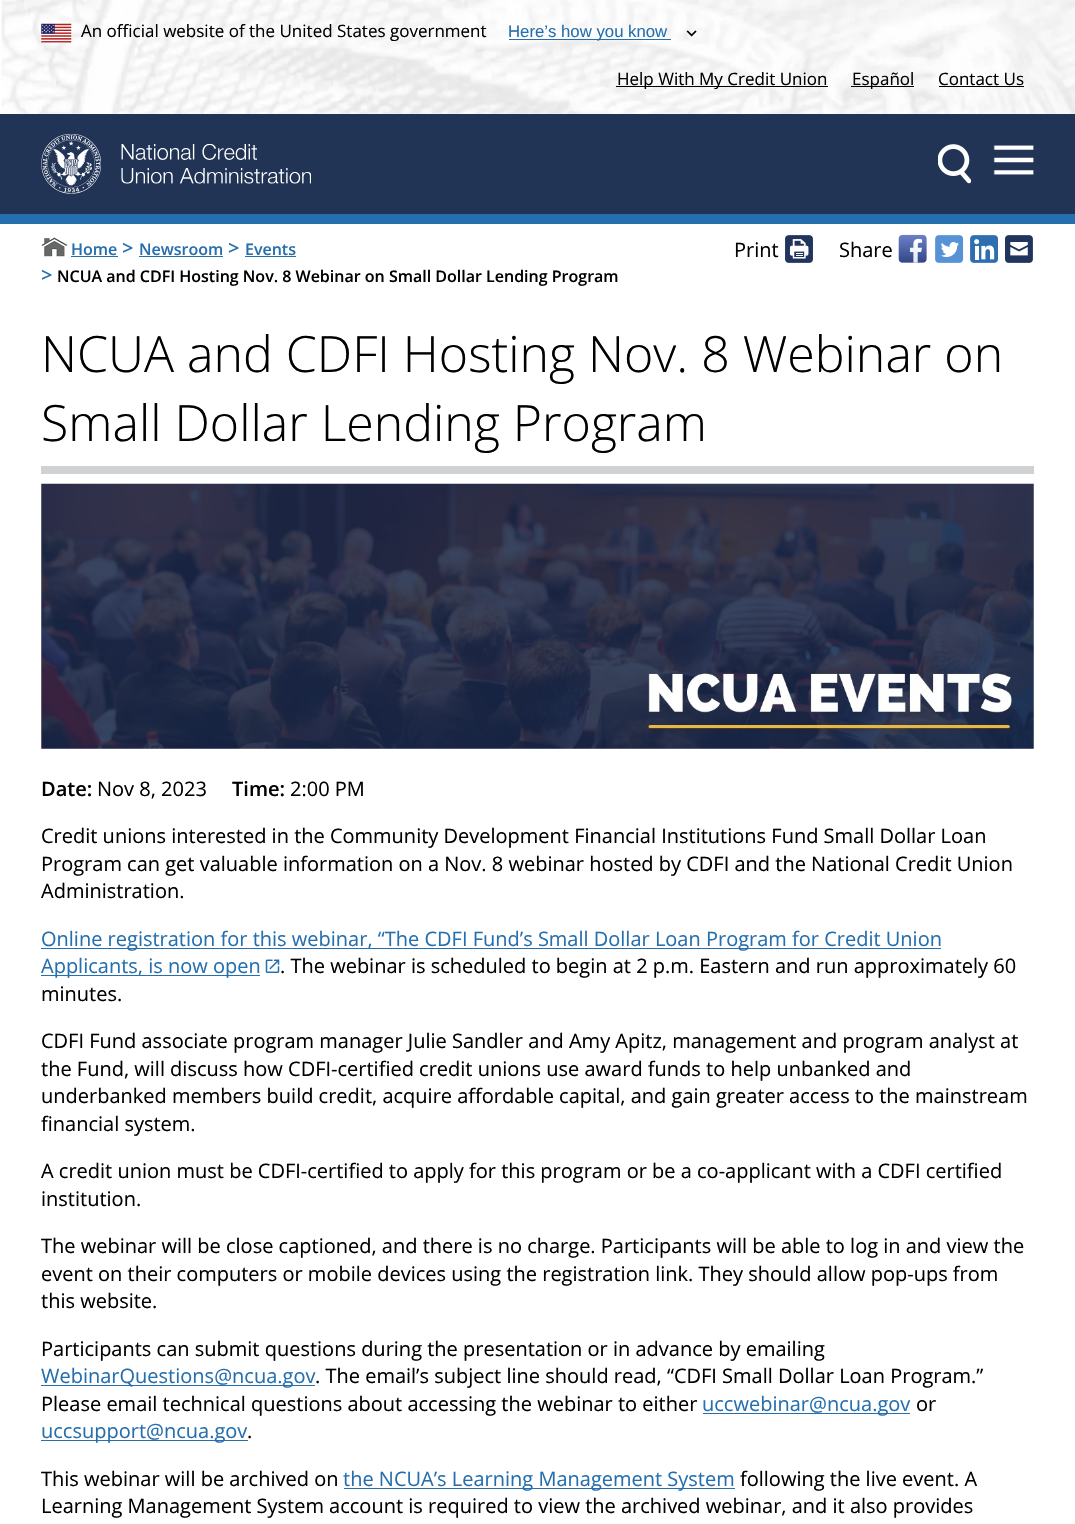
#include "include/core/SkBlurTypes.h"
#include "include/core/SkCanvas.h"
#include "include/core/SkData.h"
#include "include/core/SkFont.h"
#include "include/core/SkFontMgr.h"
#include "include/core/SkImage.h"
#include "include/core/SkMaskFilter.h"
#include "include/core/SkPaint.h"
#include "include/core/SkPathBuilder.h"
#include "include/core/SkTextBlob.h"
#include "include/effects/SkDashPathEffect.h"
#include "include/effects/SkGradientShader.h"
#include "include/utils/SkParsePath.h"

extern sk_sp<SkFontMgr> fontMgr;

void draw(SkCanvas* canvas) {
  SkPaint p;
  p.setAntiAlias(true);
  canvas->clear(SK_ColorWHITE);
  canvas->drawImageRect(SkImages::DeferredFromEncodedData(SkData::MakeFromFileName("images/1.png")), SkRect::MakeLTRB(1, 0, 1075, 114), SkSamplingOptions());
  canvas->drawImageRect(SkImages::DeferredFromEncodedData(SkData::MakeFromFileName("images/2.png")), SkRect::MakeLTRB(41, 23, 72, 43), SkSamplingOptions());
  p.setColor(SkColorSetRGB(38, 111, 174));
  canvas->drawRect(SkRect::MakeLTRB(509, 39, 666, 40), p);
  canvas->drawImageRect(SkImages::DeferredFromEncodedData(SkData::MakeFromFileName("images/3.png")), SkRect::MakeLTRB(686, 30, 697, 37), SkSamplingOptions());
  canvas->drawRect(SkRect::MakeLTRB(666, 39, 671, 40), p);
  p.setColor(SK_ColorBLACK);
  canvas->drawRect(SkRect::MakeLTRB(616, 86, 828, 87), p);
  canvas->drawRect(SkRect::MakeLTRB(851, 86, 914, 87), p);
  canvas->drawRect(SkRect::MakeLTRB(939, 86, 1024, 87), p);
  p.setColor(SkColorSetRGB(33, 52, 86));
  canvas->drawRect(SkRect::MakeLTRB(0, 114, 1075, 214), p);
  p.setColor(SkColorSetRGB(38, 111, 174));
  canvas->drawRect(SkRect::MakeLTRB(0, 214, 1075, 224), p);
  canvas->drawImageRect(SkImages::DeferredFromEncodedData(SkData::MakeFromFileName("images/4.png")), SkRect::MakeLTRB(41, 134, 101, 194), SkSamplingOptions());
  canvas->drawImageRect(SkImages::DeferredFromEncodedData(SkData::MakeFromFileName("images/5.png")), SkRect::MakeLTRB(121, 144, 311, 184), SkSamplingOptions());
  canvas->drawImageRect(SkImages::DeferredFromEncodedData(SkData::MakeFromFileName("images/6.png")), SkRect::MakeLTRB(938, 144, 971, 184), SkSamplingOptions());
  canvas->drawImageRect(SkImages::DeferredFromEncodedData(SkData::MakeFromFileName("images/7.png")), SkRect::MakeLTRB(993, 145, 1034, 175), SkSamplingOptions());
  canvas->drawImageRect(SkImages::DeferredFromEncodedData(SkData::MakeFromFileName("images/8.png")), SkRect::MakeLTRB(41, 237, 68, 257), SkSamplingOptions());
  canvas->drawRect(SkRect::MakeLTRB(71, 256, 118, 257), p);
  canvas->drawRect(SkRect::MakeLTRB(139, 256, 223, 257), p);
  canvas->drawRect(SkRect::MakeLTRB(245, 256, 296, 257), p);
  canvas->drawImageRect(SkImages::DeferredFromEncodedData(SkData::MakeFromFileName("images/9.png")), SkRect::MakeLTRB(785, 235, 813, 263), SkSamplingOptions());
  canvas->drawImageRect(SkImages::DeferredFromEncodedData(SkData::MakeFromFileName("images/10.png")), SkRect::MakeLTRB(898, 234, 927, 263), SkSamplingOptions());
  canvas->drawImageRect(SkImages::DeferredFromEncodedData(SkData::MakeFromFileName("images/11.png")), SkRect::MakeLTRB(935, 235, 964, 263), SkSamplingOptions());
  canvas->drawImageRect(SkImages::DeferredFromEncodedData(SkData::MakeFromFileName("images/12.png")), SkRect::MakeLTRB(970, 235, 998, 263), SkSamplingOptions());
  canvas->drawImageRect(SkImages::DeferredFromEncodedData(SkData::MakeFromFileName("images/13.png")), SkRect::MakeLTRB(1005, 235, 1033, 263), SkSamplingOptions());
  p.setColor(SkColorSetRGB(207, 209, 210));
  canvas->drawRect(SkRect::MakeLTRB(41, 466, 1034, 474), p);
  canvas->drawImageRect(SkImages::DeferredFromEncodedData(SkData::MakeFromFileName("images/14.png")), SkRect::MakeLTRB(41, 483, 1034, 749), SkSamplingOptions());
  p.setColor(SkColorSetRGB(38, 111, 174));
  canvas->drawRect(SkRect::MakeLTRB(41, 948, 941, 949), p);
  canvas->drawRect(SkRect::MakeLTRB(41, 975, 260, 976), p);
  canvas->drawImageRect(SkImages::DeferredFromEncodedData(SkData::MakeFromFileName("images/15.png")), SkRect::MakeLTRB(265, 959, 280, 973), SkSamplingOptions());
  canvas->drawRect(SkRect::MakeLTRB(41, 1385, 315, 1386), p);
  canvas->drawRect(SkRect::MakeLTRB(703, 1413, 910, 1414), p);
  canvas->drawRect(SkRect::MakeLTRB(41, 1440, 248, 1441), p);
  canvas->drawRect(SkRect::MakeLTRB(344, 1488, 735, 1489), p);
  SkFont font1(fontMgr->matchFamilyStyle("Open Sans", SkFontStyle::Normal()), 17);
  font1.setSubpixel(true);
  p.setColor(SK_ColorBLACK);
  canvas->drawString("An official website of the United States government", 81, 37, font1, p);
  SkFont font2(fontMgr->matchFamilyStyle("Liberation Sans", SkFontStyle::Normal()), 16.75f);
  font2.setSubpixel(true);
  p.setColor(SkColorSetRGB(38, 111, 174));
  canvas->drawString("Here’s how you know", 508, 37, font2, p);
  p.setColor(SK_ColorBLACK);
  canvas->drawString("Help With My Credit Union", 617, 85, font1, p);
  canvas->drawString("Español", 852, 85, font1, p);
  canvas->drawString("Contact Us", 938, 85, font1, p);
  SkFont font3(fontMgr->matchFamilyStyle("Open Sans", SkFontStyle(600, SkFontStyle::kNormal_Width, SkFontStyle::kUpright_Slant)), 16);
  font3.setSubpixel(true);
  p.setColor(SkColorSetRGB(38, 111, 174));
  canvas->drawString("Home", 71, 255, font3, p);
  SkFont font4(fontMgr->matchFamilyStyle("Open Sans", SkFontStyle(600, SkFontStyle::kNormal_Width, SkFontStyle::kUpright_Slant)), 20);
  font4.setSubpixel(true);
  canvas->drawString(">", 122, 255, font4, p);
  canvas->drawString("Newsroom", 139, 255, font3, p);
  canvas->drawString(">", 228, 255, font4, p);
  canvas->drawString("Events", 245, 255, font3, p);
  canvas->drawString(">", 41, 282, font4, p);
  p.setColor(SK_ColorBLACK);
  canvas->drawString("NCUA and CDFI Hosting Nov. 8 Webinar on Small Dollar Lending Program", 57, 282, font3, p);
  SkFont font5(fontMgr->matchFamilyStyle("Open Sans", SkFontStyle::Normal()), 20);
  font5.setSubpixel(true);
  canvas->drawString("Print", 734, 257, font5, p);
  canvas->drawString("Share", 839, 257, font5, p);
  SkFont font6(fontMgr->matchFamilyStyle("Open Sans", SkFontStyle(300, SkFontStyle::kNormal_Width, SkFontStyle::kUpright_Slant)), 50);
  font6.setSubpixel(true);
  canvas->drawString("NCUA and CDFI Hosting Nov. 8 Webinar on", 41, 372, font6, p);
  canvas->drawString("Small Dollar Lending Program", 41, 441, font6, p);
  canvas->drawString("Date:", 41, 796, font4, p);
  canvas->drawString("Nov 8, 2023", 97, 796, font5, p);
  canvas->drawString("Time:", 232, 796, font4, p);
  canvas->drawString("2:00 PM", 290, 796, font5, p);
  canvas->drawString("Credit unions interested in the Community Development Financial Institutions Fund Small Dollar Loan", 41, 843, font5, p);
  canvas->drawString("Program can get valuable information on a Nov. 8 webinar hosted by CDFI and the National Credit Union", 41, 871, font5, p);
  canvas->drawString("Administration.", 41, 898, font5, p);
  p.setColor(SkColorSetRGB(38, 111, 174));
  canvas->drawString("Online registration for this webinar, “The CDFI Fund’s Small Dollar Loan Program for Credit Union", 41, 946, font5, p);
  canvas->drawString("Applicants, is now open", 41, 973, font5, p);
  p.setColor(SK_ColorBLACK);
  canvas->drawString(". The webinar is scheduled to begin at 2 p.m. Eastern and run approximately 60", 280, 973, font5, p);
  canvas->drawString("minutes.", 41, 1001, font5, p);
  canvas->drawString("CDFI Fund associate program manager Julie Sandler and Amy Apitz, management and program analyst at", 41, 1048, font5, p);
  canvas->drawString("the Fund, will discuss how CDFI-certified credit unions use award funds to help unbanked and", 41, 1076, font5, p);
  canvas->drawString("underbanked members build credit, acquire affordable capital, and gain greater access to the mainstream", 41, 1103, font5, p);
  canvas->drawString("financial system.", 41, 1131, font5, p);
  canvas->drawString("A credit union must be CDFI-certified to apply for this program or be a co-applicant with a CDFI certified", 41, 1178, font5, p);
  canvas->drawString("institution.", 41, 1206, font5, p);
  canvas->drawString("The webinar will be close captioned, and there is no charge. Participants will be able to log in and view the", 41, 1253, font5, p);
  canvas->drawString("event on their computers or mobile devices using the registration link. They should allow pop-ups from", 41, 1281, font5, p);
  canvas->drawString("this website.", 41, 1308, font5, p);
  canvas->drawString("Participants can submit questions during the presentation or in advance by emailing", 41, 1356, font5, p);
  p.setColor(SkColorSetRGB(38, 111, 174));
  canvas->drawString("WebinarQuestions@ncua.gov", 41, 1383, font5, p);
  p.setColor(SK_ColorBLACK);
  canvas->drawString(". The email’s subject line should read, “CDFI Small Dollar Loan Program.”", 315, 1383, font5, p);
  canvas->drawString("Please email technical questions about accessing the webinar to either", 41, 1411, font5, p);
  p.setColor(SkColorSetRGB(38, 111, 174));
  canvas->drawString("uccwebinar@ncua.gov", 702, 1411, font5, p);
  p.setColor(SK_ColorBLACK);
  canvas->drawString("or", 916, 1411, font5, p);
  p.setColor(SkColorSetRGB(38, 111, 174));
  canvas->drawString("uccsupport@ncua.gov", 41, 1438, font5, p);
  p.setColor(SK_ColorBLACK);
  canvas->drawString(".", 247, 1438, font5, p);
  canvas->drawString("This webinar will be archived on", 41, 1486, font5, p);
  p.setColor(SkColorSetRGB(38, 111, 174));
  canvas->drawString("the NCUA’s Learning Management System", 343, 1486, font5, p);
  p.setColor(SK_ColorBLACK);
  canvas->drawString("following the live event. A", 740, 1486, font5, p);
  canvas->drawString("Learning Management System account is required to view the archived webinar, and it also provides", 41, 1513, font5, p);
}
